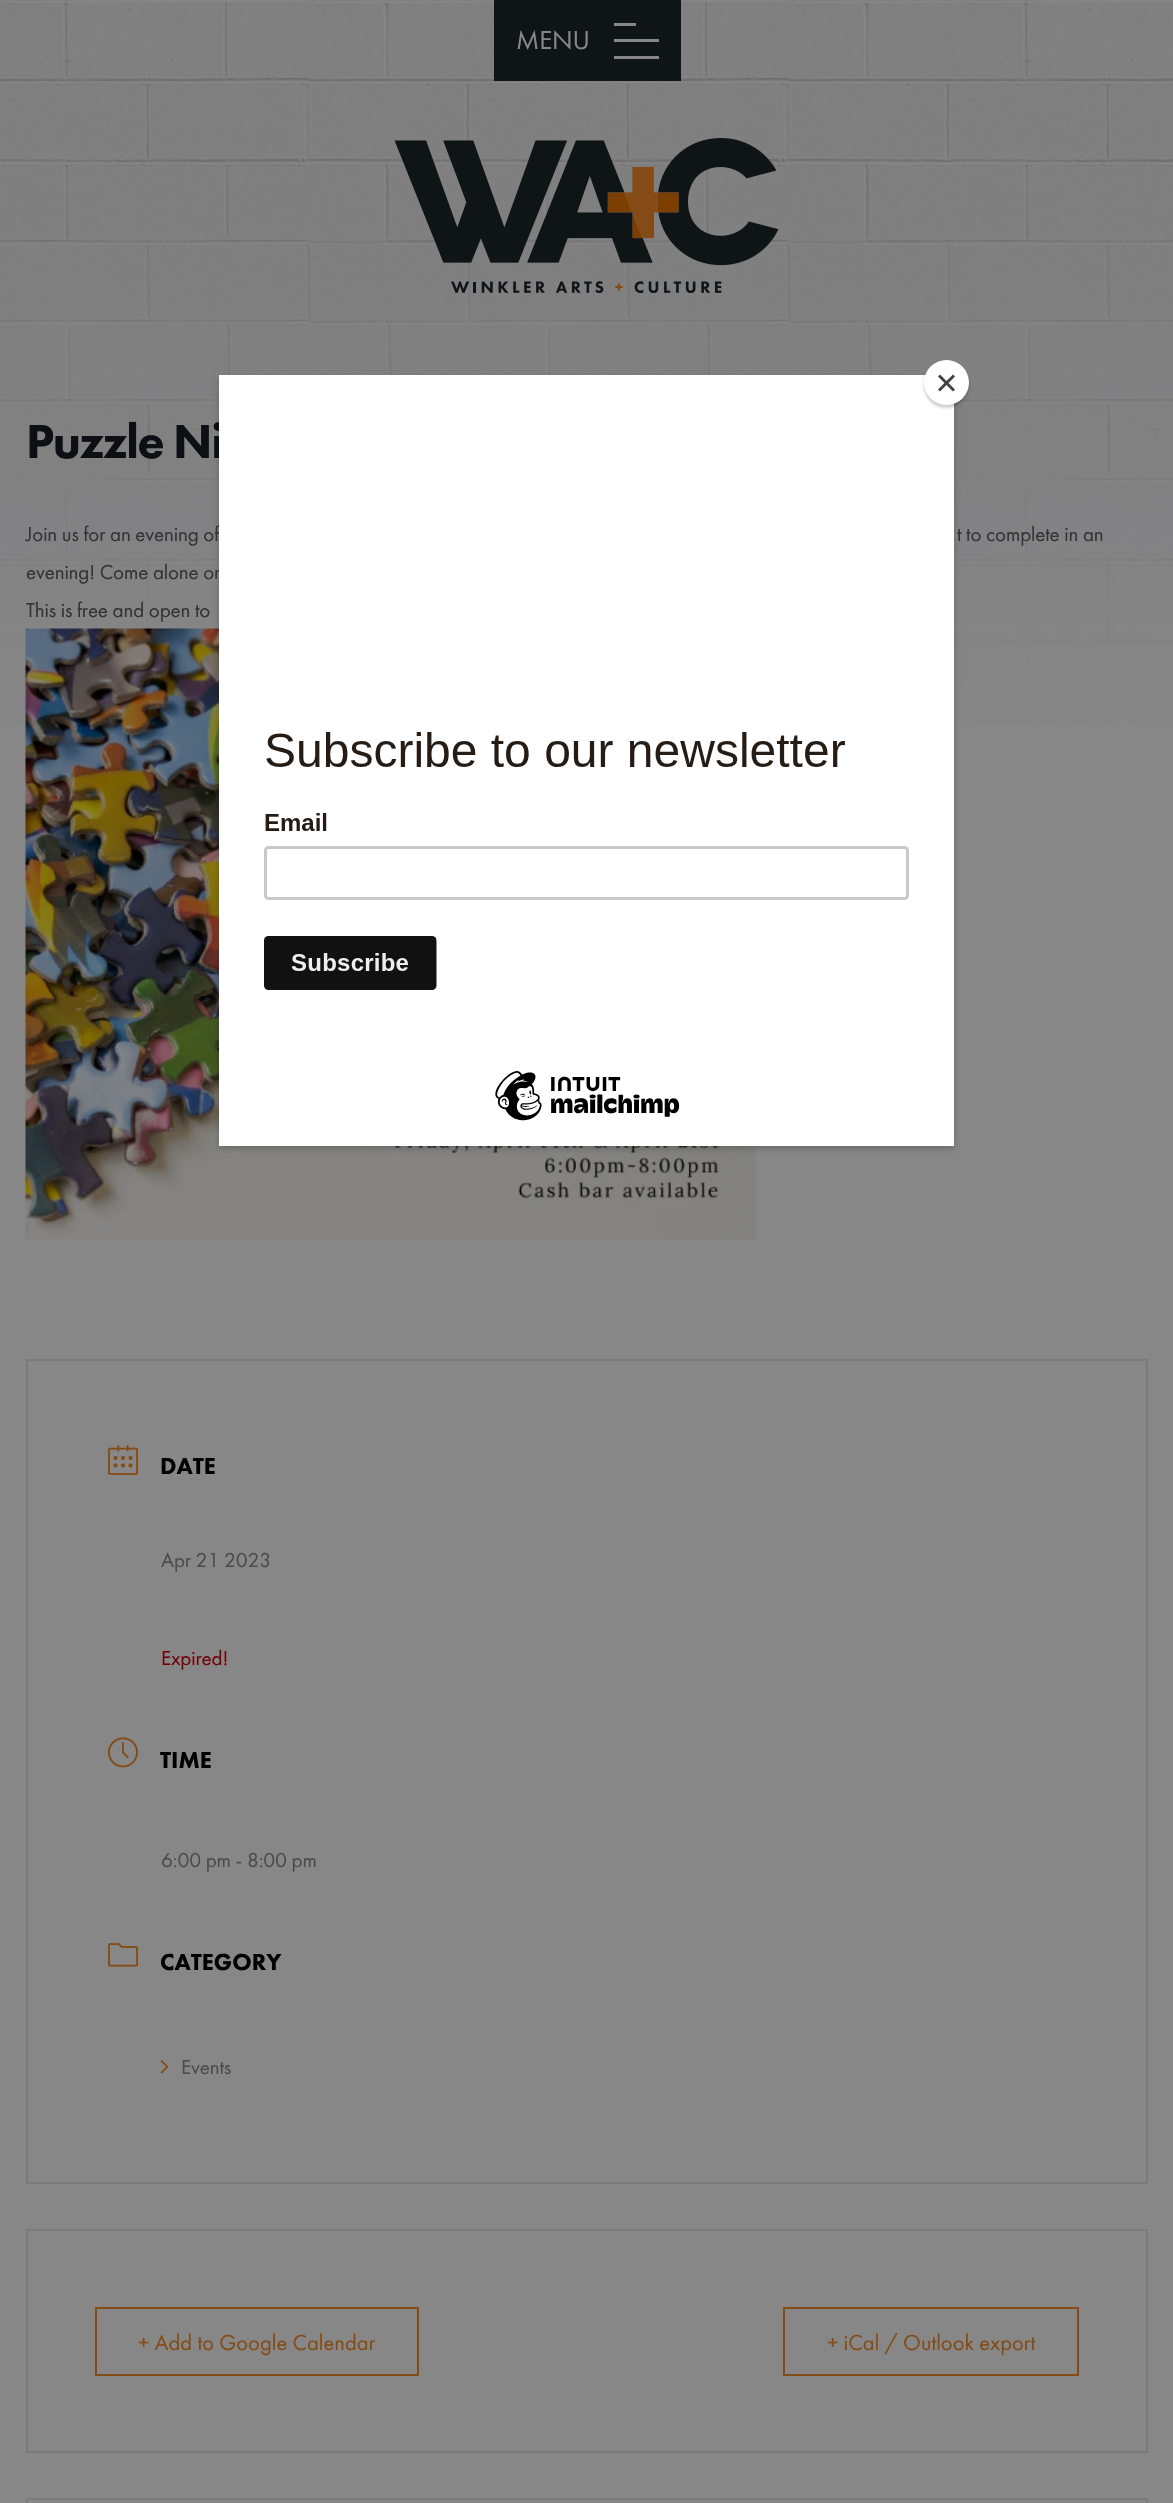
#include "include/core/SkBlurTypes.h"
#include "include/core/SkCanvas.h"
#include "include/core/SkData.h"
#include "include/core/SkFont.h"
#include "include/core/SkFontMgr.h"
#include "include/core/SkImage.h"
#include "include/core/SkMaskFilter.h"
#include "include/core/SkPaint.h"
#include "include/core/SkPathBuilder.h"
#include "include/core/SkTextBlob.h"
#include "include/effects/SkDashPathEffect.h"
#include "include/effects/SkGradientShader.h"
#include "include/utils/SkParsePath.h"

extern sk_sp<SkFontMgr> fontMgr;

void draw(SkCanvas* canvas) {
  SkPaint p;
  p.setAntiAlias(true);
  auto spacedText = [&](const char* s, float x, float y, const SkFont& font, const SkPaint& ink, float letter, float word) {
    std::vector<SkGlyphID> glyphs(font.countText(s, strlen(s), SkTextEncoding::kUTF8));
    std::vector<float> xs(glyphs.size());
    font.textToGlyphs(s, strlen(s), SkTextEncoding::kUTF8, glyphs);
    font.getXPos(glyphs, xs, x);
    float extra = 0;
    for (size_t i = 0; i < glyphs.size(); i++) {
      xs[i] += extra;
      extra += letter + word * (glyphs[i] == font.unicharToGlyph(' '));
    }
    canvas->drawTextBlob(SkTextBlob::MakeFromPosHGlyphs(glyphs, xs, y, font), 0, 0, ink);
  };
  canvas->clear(SkColorSetRGB(135, 135, 135));
  canvas->drawImageRect(SkImages::DeferredFromEncodedData(SkData::MakeFromFileName("images/2.png")), SkRect::MakeLTRB(0, 0, 1173, 723), SkSamplingOptions());
  p.setColor(SkColorSetRGB(15, 20, 23));
  canvas->drawRect(SkRect::MakeLTRB(494, 0, 681, 81), p);
  p.setColor(SkColorSetRGB(135, 135, 135));
  canvas->drawRect(SkRect::MakeLTRB(614, 23, 636, 26), p);
  canvas->drawRect(SkRect::MakeLTRB(614, 39, 659, 42), p);
  canvas->drawRect(SkRect::MakeLTRB(614, 56, 659, 59), p);
  canvas->drawImageRect(SkImages::DeferredFromEncodedData(SkData::MakeFromFileName("images/4.png")), SkRect::MakeLTRB(25, 628, 756, 1241), SkSamplingOptions());
  p.setColor(SkColorSetARGB(51, 0, 0, 0));
  p.setMaskFilter(SkMaskFilter::MakeBlur(kNormal_SkBlurStyle, 3));
  canvas->drawRect(SkRect::MakeLTRB(219, 378, 954, 1149), p);
  p.setMaskFilter(nullptr);
  canvas->drawImageRect(SkImages::DeferredFromEncodedData(SkData::MakeFromFileName("images/3.png")), SkRect::MakeLTRB(395, 138, 779, 293), SkSamplingOptions());
  p.setStyle(SkPaint::kStroke_Style);
  p.setStrokeWidth(2);
  p.setColor(SkColorSetRGB(122, 122, 123));
  canvas->drawRect(SkRect::MakeLTRB(27, 1360, 1147, 2183), p);
  canvas->drawImageRect(SkImages::DeferredFromEncodedData(SkData::MakeFromFileName("images/5.png")), SkRect::MakeLTRB(108, 1444, 138, 1475), SkSamplingOptions());
  canvas->drawImageRect(SkImages::DeferredFromEncodedData(SkData::MakeFromFileName("images/6.png")), SkRect::MakeLTRB(108, 1737, 138, 1768), SkSamplingOptions());
  canvas->drawImageRect(SkImages::DeferredFromEncodedData(SkData::MakeFromFileName("images/7.png")), SkRect::MakeLTRB(108, 1943, 138, 1967), SkSamplingOptions());
  canvas->drawImageRect(SkImages::DeferredFromEncodedData(SkData::MakeFromFileName("images/8.png")), SkRect::MakeLTRB(160, 2060, 169, 2074), SkSamplingOptions());
  canvas->drawRect(SkRect::MakeLTRB(27, 2230, 1147, 2452), p);
  p.setColor(SkColorSetRGB(131, 75, 21));
  canvas->drawRect(SkRect::MakeLTRB(96, 2308, 418, 2375), p);
  canvas->drawRect(SkRect::MakeLTRB(784, 2308, 1078, 2375), p);
  p.setColor(SkColorSetRGB(122, 122, 123));
  canvas->drawRect(SkRect::MakeLTRB(27, 2499, 1147, 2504), p);
  SkFont font1(fontMgr->matchFamilyStyle("Futura PT", SkFontStyle::Normal()), 27);
  font1.setSubpixel(true);
  p.setStyle(SkPaint::kFill_Style);
  p.setColor(SkColorSetRGB(135, 135, 135));
  spacedText("MENU", 516, 49, font1, p, -0.15f, 0);
  SkFont font2(fontMgr->matchFamilyStyle("Futura PT", SkFontStyle(900, SkFontStyle::kNormal_Width, SkFontStyle::kUpright_Slant)), 49.5f);
  font2.setSubpixel(true);
  p.setColor(SkColorSetRGB(12, 15, 19));
  spacedText("Puzzle Ni", 26, 458, font2, p, -1.5f, 0);
  SkFont font3(fontMgr->matchFamilyStyle("Futura PT", SkFontStyle::Normal()), 21);
  font3.setSubpixel(true);
  p.setColor(SkColorSetRGB(51, 51, 51));
  spacedText("Join us for an evening of", 26, 541, font3, p, -0.15f, 0);
  spacedText("t to complete in an", 957, 541, font3, p, -0.15f, 0);
  spacedText("evening! Come alone or", 26, 579, font3, p, -0.15f, 0);
  canvas->drawImageRect(SkImages::DeferredFromEncodedData(SkData::MakeFromFileName("images/1.png")), SkRect::MakeLTRB(219, 375, 954, 1146), SkSamplingOptions());
  p.setColor(SkColorSetARGB(51, 0, 0, 0));
  p.setMaskFilter(SkMaskFilter::MakeBlur(kNormal_SkBlurStyle, 1.5f));
  canvas->drawRoundRect(SkRect::MakeLTRB(924, 363, 969, 408), 22.5f, 22.5f, p);
  p.setMaskFilter(nullptr);
  p.setColor(SK_ColorWHITE);
  canvas->drawCircle(946.5f, 382.5f, 22.5f, p);
  p.setColor(SkColorSetRGB(65, 65, 65));
  canvas->drawPath(SkPathBuilder().moveTo(953, 374.5f).lineTo(955, 376.5f).lineTo(940, 391.5f).lineTo(938, 389.5f).close().detach(), p);
  canvas->drawPath(SkPathBuilder().moveTo(938, 376.5f).lineTo(940, 374.5f).lineTo(955, 389.5f).lineTo(953, 391.5f).close().detach(), p);
  p.setColor(SkColorSetRGB(51, 51, 51));
  spacedText("This is free and open to", 26, 617, font3, p, -0.15f, 0);
  SkFont font4(fontMgr->matchFamilyStyle("Futura PT", SkFontStyle(900, SkFontStyle::kNormal_Width, SkFontStyle::kUpright_Slant)), 24);
  font4.setSubpixel(true);
  p.setColor(SK_ColorBLACK);
  canvas->drawString("DATE", 160, 1474, font4, p);
  p.setColor(SkColorSetRGB(75, 75, 75));
  spacedText("Apr 21 2023", 161, 1567, font3, p, -0.15f, 0);
  p.setColor(SkColorSetRGB(114, 0, 6));
  spacedText("Expired!", 161, 1665, font3, p, -0.15f, 0);
  p.setColor(SK_ColorBLACK);
  canvas->drawString("TIME", 160, 1768, font4, p);
  p.setColor(SkColorSetRGB(75, 75, 75));
  spacedText("6:00 pm - 8:00 pm", 161, 1867, font3, p, -0.15f, 0);
  p.setColor(SK_ColorBLACK);
  canvas->drawString("CATEGORY", 160, 1970, font4, p);
  p.setColor(SkColorSetRGB(75, 75, 75));
  spacedText("Events", 181, 2074, font3, p, -0.15f, 0);
  SkFont font5(fontMgr->matchFamilyStyle("Futura PT", SkFontStyle::Normal()), 22.5f);
  font5.setSubpixel(true);
  p.setColor(SkColorSetRGB(131, 75, 21));
  canvas->drawString("+ Add to Google Calendar", 138, 2350, font5, p);
  canvas->drawString("+ iCal / Outlook export", 827, 2350, font5, p);
}
